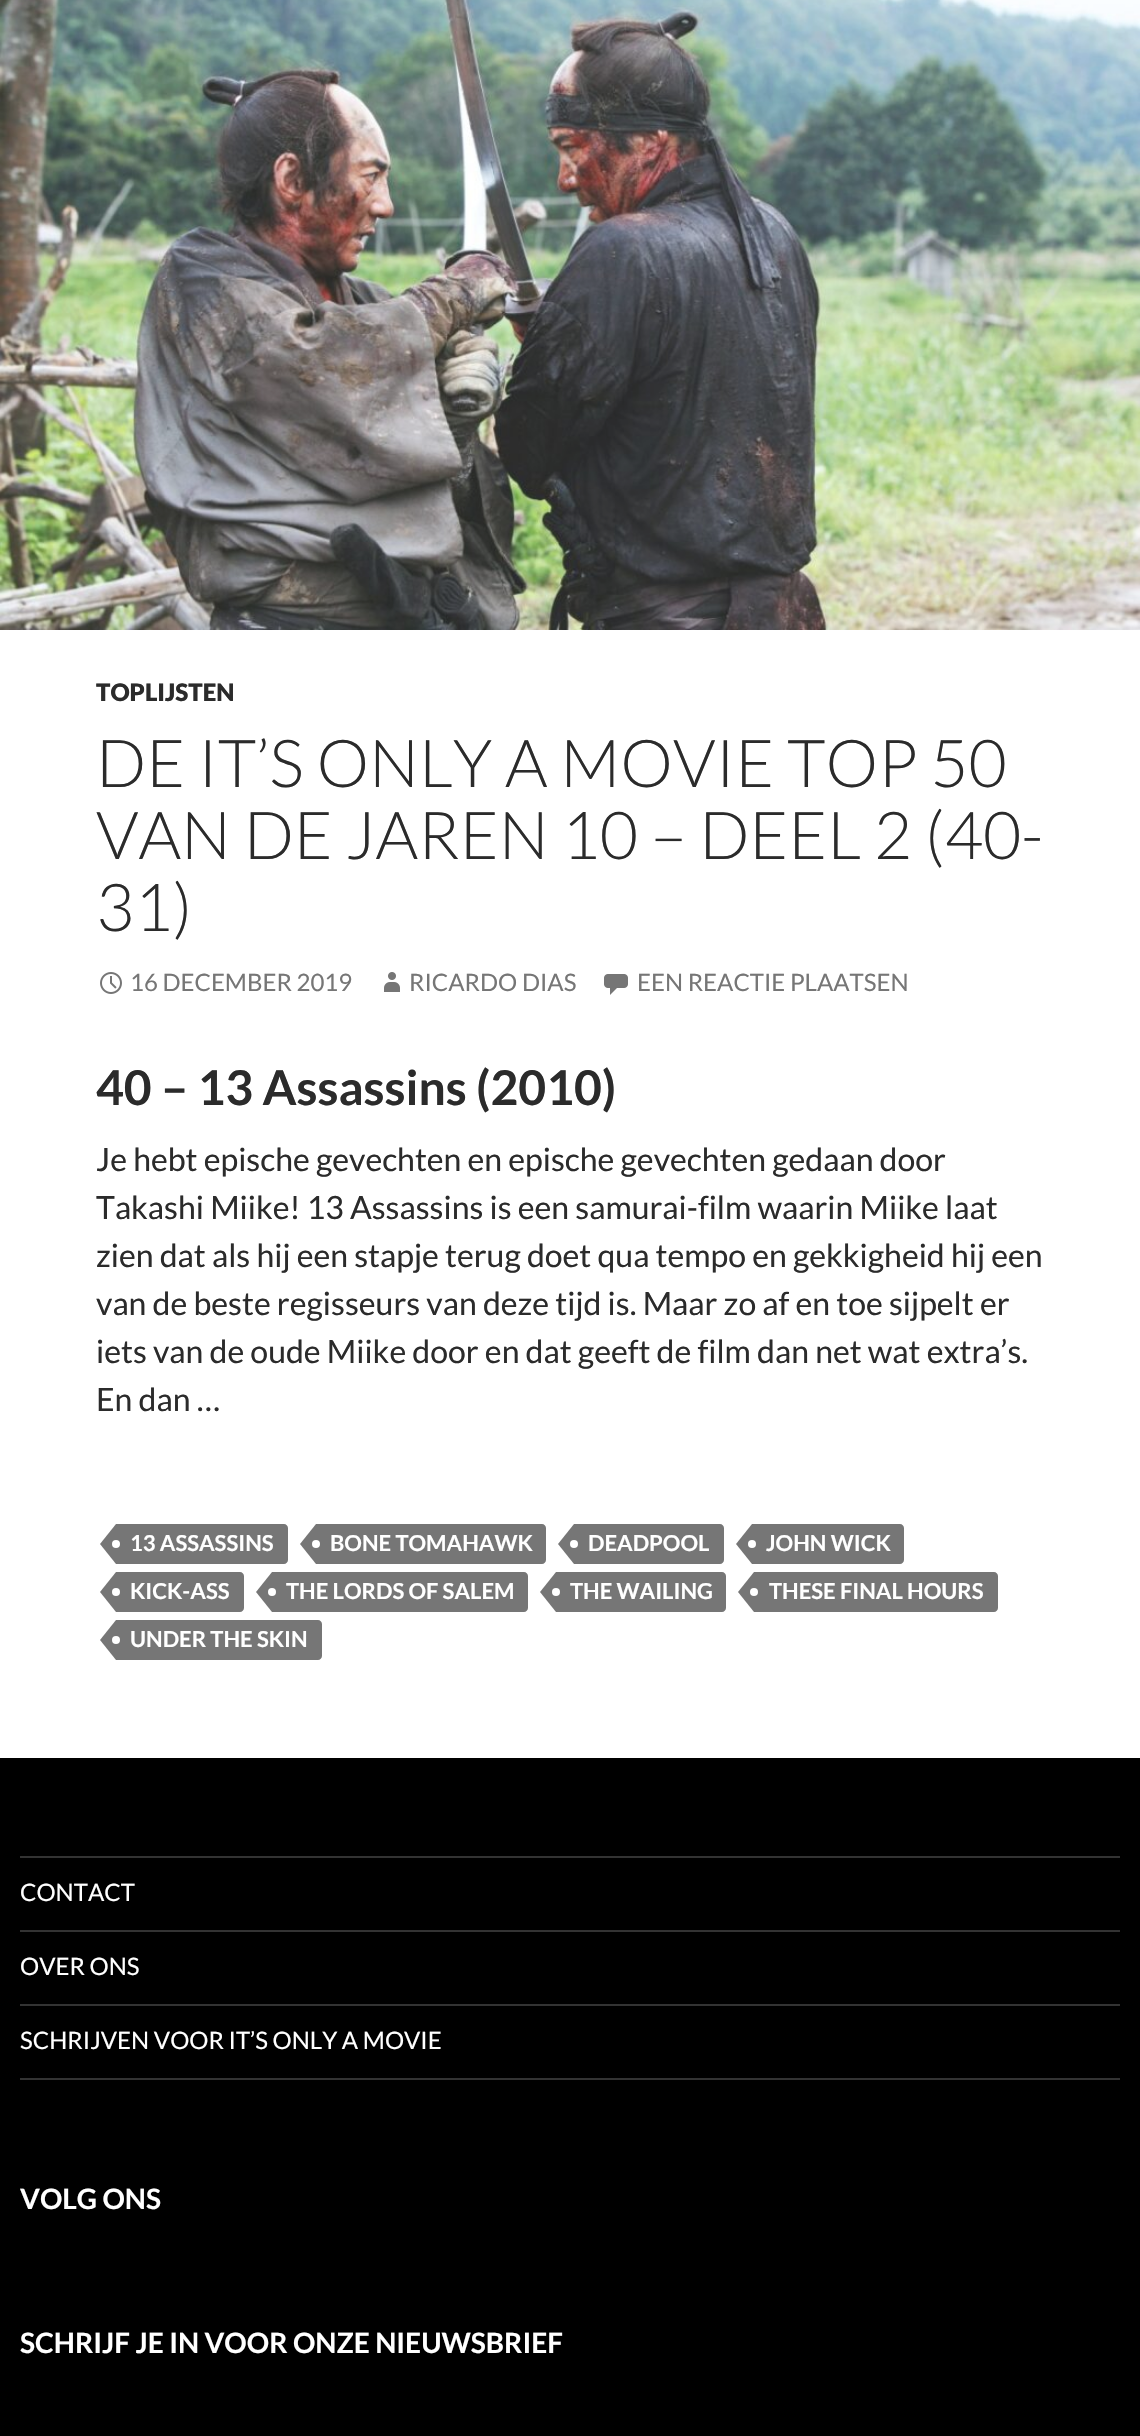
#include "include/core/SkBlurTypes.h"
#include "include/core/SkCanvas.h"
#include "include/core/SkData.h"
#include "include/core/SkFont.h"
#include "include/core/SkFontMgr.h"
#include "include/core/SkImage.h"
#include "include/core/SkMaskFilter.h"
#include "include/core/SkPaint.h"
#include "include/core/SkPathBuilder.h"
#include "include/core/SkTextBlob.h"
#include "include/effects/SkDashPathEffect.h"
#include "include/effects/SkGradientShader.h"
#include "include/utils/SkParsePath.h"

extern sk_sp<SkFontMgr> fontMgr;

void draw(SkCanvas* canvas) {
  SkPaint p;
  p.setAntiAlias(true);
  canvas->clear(SK_ColorWHITE);
  canvas->drawImageRect(SkImages::DeferredFromEncodedData(SkData::MakeFromFileName("images/1.png")), SkRect::MakeLTRB(0, 0, 1140, 630), SkSamplingOptions());
  canvas->drawImageRect(SkImages::DeferredFromEncodedData(SkData::MakeFromFileName("images/2.png")), SkRect::MakeLTRB(0, 0, 1140, 630), SkSamplingOptions());
  canvas->drawImageRect(SkImages::DeferredFromEncodedData(SkData::MakeFromFileName("images/3.png")), SkRect::MakeLTRB(100, 972, 122, 994), SkSamplingOptions());
  canvas->drawImageRect(SkImages::DeferredFromEncodedData(SkData::MakeFromFileName("images/4.png")), SkRect::MakeLTRB(384, 972, 400, 992), SkSamplingOptions());
  canvas->drawImageRect(SkImages::DeferredFromEncodedData(SkData::MakeFromFileName("images/5.png")), SkRect::MakeLTRB(604, 974, 628, 995), SkSamplingOptions());
  p.setColor(SkColorSetRGB(118, 118, 118));
  canvas->drawPath(SkPathBuilder().moveTo(116, 1524).lineTo(284, 1524).cubicTo(286, 1524, 288, 1526, 288, 1528).lineTo(288, 1560).cubicTo(288, 1562, 286, 1564, 284, 1564).lineTo(116, 1564).close().detach(), p);
  canvas->drawPath(SkPathBuilder().moveTo(116, 1524).lineTo(116, 1564).lineTo(100, 1544).close().detach(), p);
  p.setColor(SK_ColorWHITE);
  canvas->drawCircle(116, 1544, 4, p);
  p.setColor(SkColorSetRGB(118, 118, 118));
  canvas->drawPath(SkPathBuilder().moveTo(316, 1524).lineTo(542, 1524).cubicTo(544, 1524, 546, 1526, 546, 1528).lineTo(546, 1560).cubicTo(546, 1562, 544, 1564, 542, 1564).lineTo(316, 1564).close().detach(), p);
  canvas->drawPath(SkPathBuilder().moveTo(316, 1524).lineTo(316, 1564).lineTo(300, 1544).close().detach(), p);
  p.setColor(SK_ColorWHITE);
  canvas->drawCircle(316, 1544, 4, p);
  p.setColor(SkColorSetRGB(118, 118, 118));
  canvas->drawPath(SkPathBuilder().moveTo(574, 1524).lineTo(720, 1524).cubicTo(722, 1524, 724, 1526, 724, 1528).lineTo(724, 1560).cubicTo(724, 1562, 722, 1564, 720, 1564).lineTo(574, 1564).close().detach(), p);
  canvas->drawPath(SkPathBuilder().moveTo(574, 1524).lineTo(574, 1564).lineTo(558, 1544).close().detach(), p);
  p.setColor(SK_ColorWHITE);
  canvas->drawCircle(574, 1544, 4, p);
  p.setColor(SkColorSetRGB(118, 118, 118));
  canvas->drawPath(SkPathBuilder().moveTo(752, 1524).lineTo(900, 1524).cubicTo(902, 1524, 904, 1526, 904, 1528).lineTo(904, 1560).cubicTo(904, 1562, 902, 1564, 900, 1564).lineTo(752, 1564).close().detach(), p);
  canvas->drawPath(SkPathBuilder().moveTo(752, 1524).lineTo(752, 1564).lineTo(736, 1544).close().detach(), p);
  p.setColor(SK_ColorWHITE);
  canvas->drawCircle(752, 1544, 4, p);
  p.setColor(SkColorSetRGB(118, 118, 118));
  canvas->drawPath(SkPathBuilder().moveTo(116, 1572).lineTo(240, 1572).cubicTo(242, 1572, 244, 1574, 244, 1576).lineTo(244, 1608).cubicTo(244, 1610, 242, 1612, 240, 1612).lineTo(116, 1612).close().detach(), p);
  canvas->drawPath(SkPathBuilder().moveTo(116, 1572).lineTo(116, 1612).lineTo(100, 1592).close().detach(), p);
  p.setColor(SK_ColorWHITE);
  canvas->drawCircle(116, 1592, 4, p);
  p.setColor(SkColorSetRGB(118, 118, 118));
  canvas->drawPath(SkPathBuilder().moveTo(272, 1572).lineTo(524, 1572).cubicTo(526, 1572, 528, 1574, 528, 1576).lineTo(528, 1608).cubicTo(528, 1610, 526, 1612, 524, 1612).lineTo(272, 1612).close().detach(), p);
  canvas->drawPath(SkPathBuilder().moveTo(272, 1572).lineTo(272, 1612).lineTo(256, 1592).close().detach(), p);
  p.setColor(SK_ColorWHITE);
  canvas->drawCircle(272, 1592, 4, p);
  p.setColor(SkColorSetRGB(118, 118, 118));
  canvas->drawPath(SkPathBuilder().moveTo(556, 1572).lineTo(722, 1572).cubicTo(724, 1572, 726, 1574, 726, 1576).lineTo(726, 1608).cubicTo(726, 1610, 724, 1612, 722, 1612).lineTo(556, 1612).close().detach(), p);
  canvas->drawPath(SkPathBuilder().moveTo(556, 1572).lineTo(556, 1612).lineTo(540, 1592).close().detach(), p);
  p.setColor(SK_ColorWHITE);
  canvas->drawCircle(556, 1592, 4, p);
  p.setColor(SkColorSetRGB(118, 118, 118));
  canvas->drawPath(SkPathBuilder().moveTo(754, 1572).lineTo(994, 1572).cubicTo(996, 1572, 998, 1574, 998, 1576).lineTo(998, 1608).cubicTo(998, 1610, 996, 1612, 994, 1612).lineTo(754, 1612).close().detach(), p);
  canvas->drawPath(SkPathBuilder().moveTo(754, 1572).lineTo(754, 1612).lineTo(738, 1592).close().detach(), p);
  p.setColor(SK_ColorWHITE);
  canvas->drawCircle(754, 1592, 4, p);
  p.setColor(SkColorSetRGB(118, 118, 118));
  canvas->drawPath(SkPathBuilder().moveTo(116, 1620).lineTo(318, 1620).cubicTo(320, 1620, 322, 1622, 322, 1624).lineTo(322, 1656).cubicTo(322, 1658, 320, 1660, 318, 1660).lineTo(116, 1660).close().detach(), p);
  canvas->drawPath(SkPathBuilder().moveTo(116, 1620).lineTo(116, 1660).lineTo(100, 1640).close().detach(), p);
  p.setColor(SK_ColorWHITE);
  canvas->drawCircle(116, 1640, 4, p);
  p.setColor(SK_ColorBLACK);
  canvas->drawRect(SkRect::MakeLTRB(0, 1758, 1140, 2436), p);
  p.setColor(SkColorSetRGB(51, 51, 51));
  canvas->drawRect(SkRect::MakeLTRB(20, 2078, 1120, 2080), p);
  canvas->drawRect(SkRect::MakeLTRB(20, 1856, 1120, 1858), p);
  canvas->drawRect(SkRect::MakeLTRB(20, 1930, 1120, 1932), p);
  canvas->drawRect(SkRect::MakeLTRB(20, 2004, 1120, 2006), p);
  SkFont font1(fontMgr->matchFamilyStyle("Lato", SkFontStyle(900, SkFontStyle::kNormal_Width, SkFontStyle::kUpright_Slant)), 24);
  font1.setSubpixel(true);
  p.setColor(SkColorSetRGB(43, 43, 43));
  canvas->drawString("TOPLIJSTEN", 96, 701, font1, p);
  SkFont font2(fontMgr->matchFamilyStyle("Lato", SkFontStyle(300, SkFontStyle::kNormal_Width, SkFontStyle::kUpright_Slant)), 66);
  font2.setSubpixel(true);
  canvas->drawString("DE IT’S ONLY A MOVIE TOP 50", 96, 787, font2, p);
  canvas->drawString("VAN DE JAREN 10 – DEEL 2 (40-", 96, 859, font2, p);
  canvas->drawString("31)", 96, 931, font2, p);
  SkFont font3(fontMgr->matchFamilyStyle("Lato", SkFontStyle::Normal()), 24);
  font3.setSubpixel(true);
  p.setColor(SkColorSetRGB(118, 118, 118));
  canvas->drawString("16 DECEMBER 2019", 130, 991, font3, p);
  canvas->drawString("RICARDO DIAS", 409, 991, font3, p);
  canvas->drawString("EEN REACTIE PLAATSEN", 637, 991, font3, p);
  SkFont font4(fontMgr->matchFamilyStyle("Lato", SkFontStyle::Bold()), 48);
  font4.setSubpixel(true);
  p.setColor(SkColorSetRGB(43, 43, 43));
  canvas->drawString("40 – 13 Assassins (2010)", 96, 1105, font4, p);
  SkFont font5(fontMgr->matchFamilyStyle("Lato", SkFontStyle::Normal()), 32);
  font5.setSubpixel(true);
  canvas->drawString("Je hebt epische gevechten en epische gevechten gedaan door", 96, 1171, font5, p);
  canvas->drawString("Takashi Miike! 13 Assassins is een samurai-film waarin Miike laat", 96, 1219, font5, p);
  canvas->drawString("zien dat als hij een stapje terug doet qua tempo en gekkigheid hij een", 96, 1267, font5, p);
  canvas->drawString("van de beste regisseurs van deze tijd is. Maar zo af en toe sijpelt er", 96, 1315, font5, p);
  canvas->drawString("iets van de oude Miike door en dat geeft de film dan net wat extra’s.", 96, 1363, font5, p);
  canvas->drawString("En dan …", 96, 1411, font5, p);
  SkFont font6(fontMgr->matchFamilyStyle("Lato", SkFontStyle::Bold()), 22);
  font6.setSubpixel(true);
  p.setColor(SK_ColorWHITE);
  canvas->drawString("13 ASSASSINS", 130, 1551, font6, p);
  canvas->drawString("BONE TOMAHAWK", 330, 1551, font6, p);
  canvas->drawString("DEADPOOL", 588, 1551, font6, p);
  canvas->drawString("JOHN WICK", 766, 1551, font6, p);
  canvas->drawString("KICK-ASS", 130, 1599, font6, p);
  canvas->drawString("THE LORDS OF SALEM", 286, 1599, font6, p);
  canvas->drawString("THE WAILING", 570, 1599, font6, p);
  canvas->drawString("THESE FINAL HOURS", 769, 1599, font6, p);
  canvas->drawString("UNDER THE SKIN", 130, 1647, font6, p);
  canvas->drawString("CONTACT", 20, 1901, font3, p);
  canvas->drawString("OVER ONS", 20, 1975, font3, p);
  canvas->drawString("SCHRIJVEN VOOR IT’S ONLY A MOVIE", 20, 2049, font3, p);
  SkFont font7(fontMgr->matchFamilyStyle("Lato", SkFontStyle::Bold()), 28);
  font7.setSubpixel(true);
  canvas->drawString("VOLG ONS", 20, 2209, font7, p);
  canvas->drawString("SCHRIJF JE IN VOOR ONZE NIEUWSBRIEF", 20, 2353, font7, p);
}
